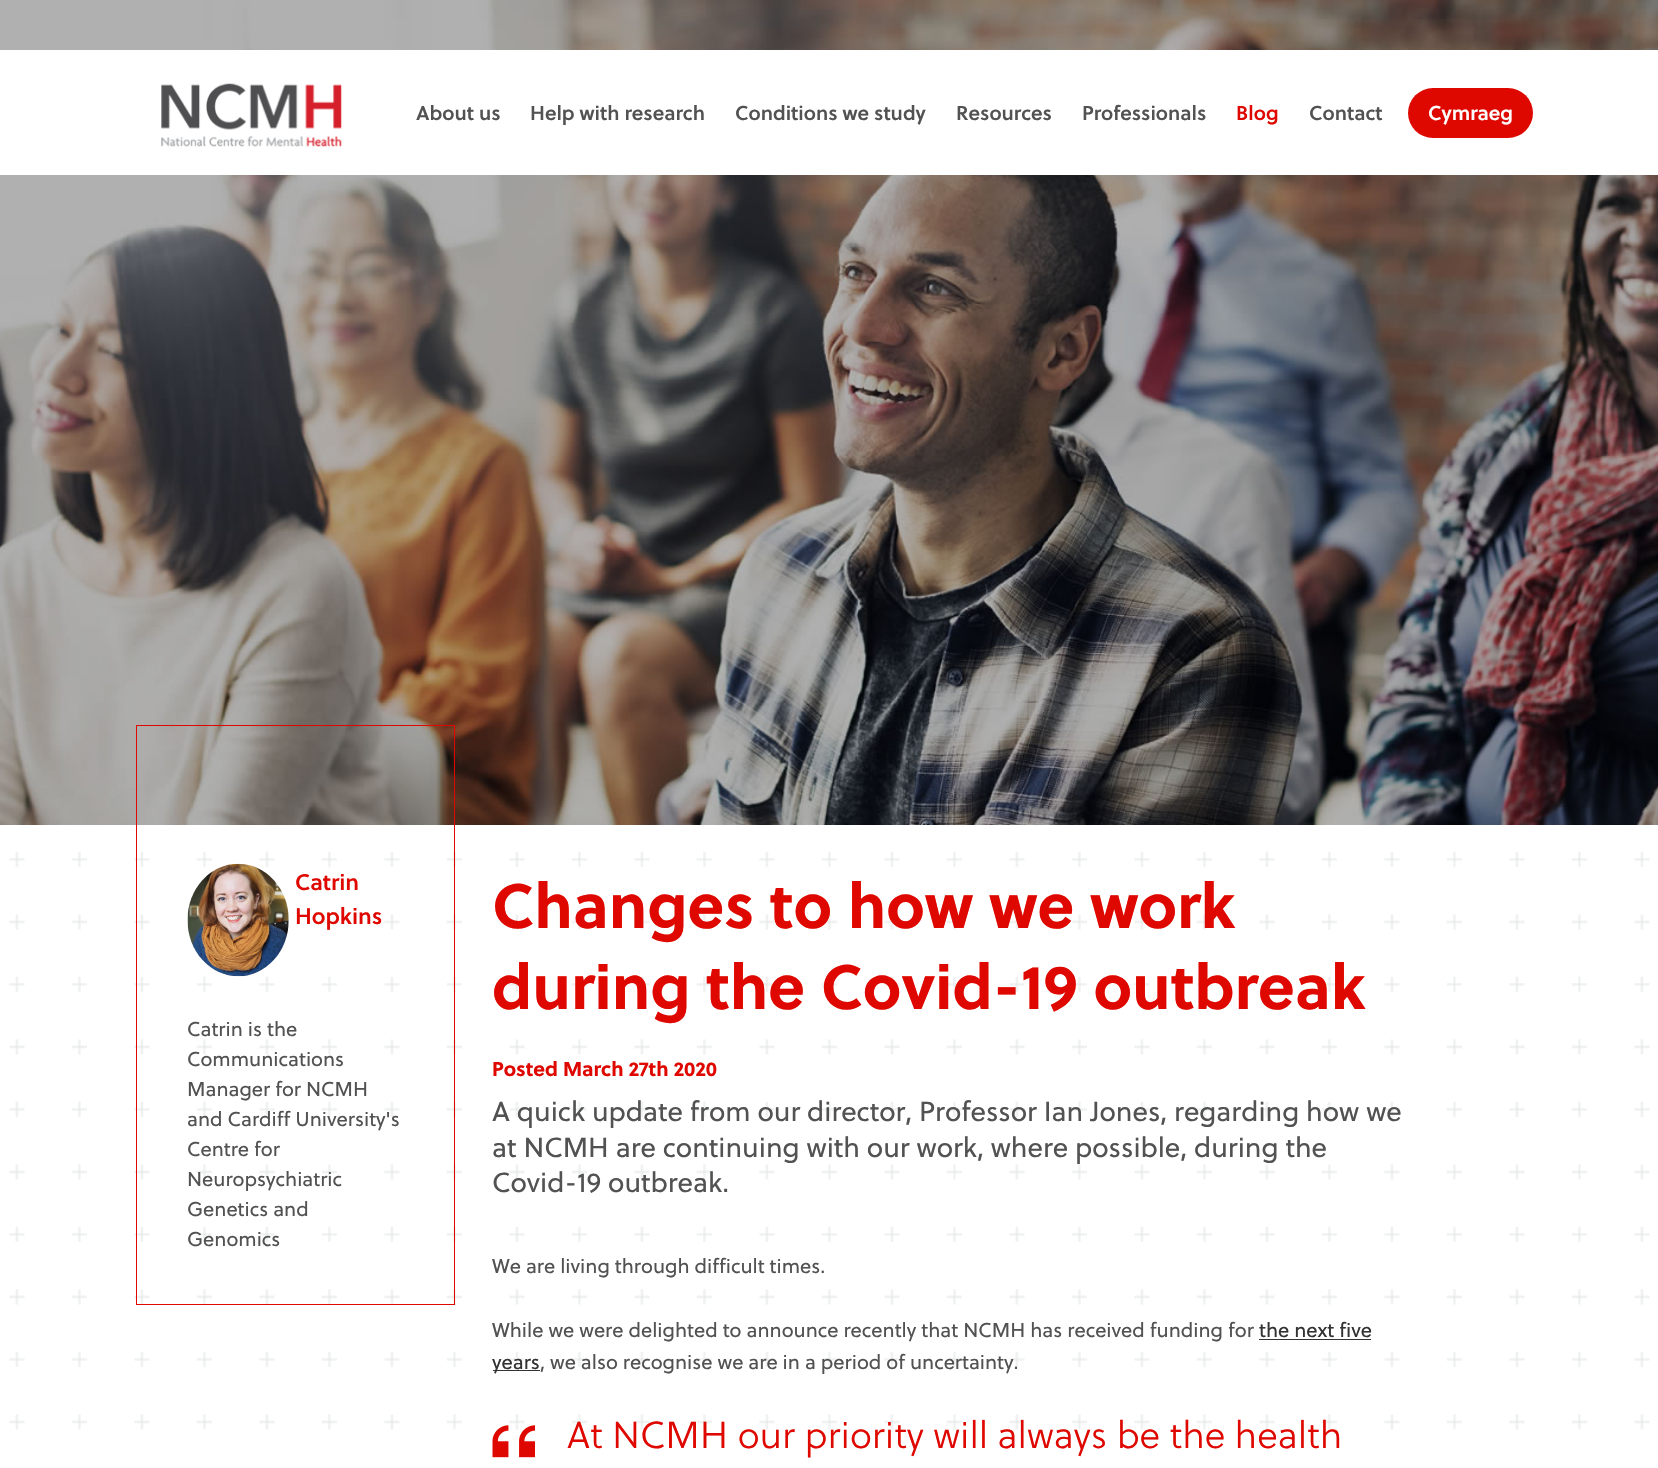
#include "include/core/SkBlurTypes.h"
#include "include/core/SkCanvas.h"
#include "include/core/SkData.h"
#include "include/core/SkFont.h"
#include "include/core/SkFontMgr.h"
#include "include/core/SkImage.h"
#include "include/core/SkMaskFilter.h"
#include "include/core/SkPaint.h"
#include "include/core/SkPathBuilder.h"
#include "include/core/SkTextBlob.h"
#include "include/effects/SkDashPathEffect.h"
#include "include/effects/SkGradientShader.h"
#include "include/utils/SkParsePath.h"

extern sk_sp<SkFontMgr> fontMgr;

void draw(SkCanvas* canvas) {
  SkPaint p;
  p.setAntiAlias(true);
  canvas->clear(SK_ColorWHITE);
  canvas->drawImageRect(SkImages::DeferredFromEncodedData(SkData::MakeFromFileName("images/1.png")), SkRect::MakeLTRB(9, 851, 1650, 1430), SkSamplingOptions());
  canvas->drawImageRect(SkImages::DeferredFromEncodedData(SkData::MakeFromFileName("images/3.png")), SkRect::MakeLTRB(0, 0, 1658, 825), SkSamplingOptions());
  p.setColor(SK_ColorWHITE);
  canvas->drawRect(SkRect::MakeLTRB(0, 50, 1658, 175), p);
  canvas->drawImageRect(SkImages::DeferredFromEncodedData(SkData::MakeFromFileName("images/2.png")), SkRect::MakeLTRB(161, 83, 342, 147), SkSamplingOptions());
  p.setColor(SkColorSetRGB(223, 8, 0));
  canvas->drawRoundRect(SkRect::MakeLTRB(1408, 88, 1533, 138), 25, 25, p);
  p.setStyle(SkPaint::kStroke_Style);
  p.setStrokeWidth(1);
  canvas->drawRect(SkRect::MakeLTRB(136.5f, 725.5f, 454.5f, 1304.5f), p);
  canvas->drawImageRect(SkImages::DeferredFromEncodedData(SkData::MakeFromFileName("images/4.png")), SkRect::MakeLTRB(187, 863, 289, 977), SkSamplingOptions());
  p.setStyle(SkPaint::kFill_Style);
  p.setColor(SkColorSetRGB(51, 51, 51));
  canvas->drawRect(SkRect::MakeLTRB(1259, 1339, 1371, 1340), p);
  canvas->drawRect(SkRect::MakeLTRB(493, 1370, 540, 1371), p);
  canvas->drawImageRect(SkImages::DeferredFromEncodedData(SkData::MakeFromFileName("images/5.png")), SkRect::MakeLTRB(492, 1425, 535, 1458), SkSamplingOptions());
  SkFont font1(fontMgr->matchFamilyStyle("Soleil", SkFontStyle(600, SkFontStyle::kNormal_Width, SkFontStyle::kUpright_Slant)), 20);
  font1.setSubpixel(true);
  p.setColor(SkColorSetRGB(82, 82, 82));
  canvas->drawString("About us", 416, 120, font1, p);
  canvas->drawString("Help with research", 530, 120, font1, p);
  canvas->drawString("Conditions we study", 735, 120, font1, p);
  canvas->drawString("Resources", 956, 120, font1, p);
  canvas->drawString("Professionals", 1082, 120, font1, p);
  p.setColor(SkColorSetRGB(223, 8, 0));
  canvas->drawString("Blog", 1236, 120, font1, p);
  p.setColor(SkColorSetRGB(82, 82, 82));
  canvas->drawString("Contact", 1309, 120, font1, p);
  p.setColor(SK_ColorWHITE);
  canvas->drawString("Cymraeg", 1428, 120, font1, p);
  SkFont font2(fontMgr->matchFamilyStyle("Soleil", SkFontStyle(600, SkFontStyle::kNormal_Width, SkFontStyle::kUpright_Slant)), 22.5f);
  font2.setSubpixel(true);
  p.setColor(SkColorSetRGB(223, 8, 0));
  canvas->drawString("Catrin", 295, 890, font2, p);
  canvas->drawString("Hopkins", 295, 924, font2, p);
  SkFont font3(fontMgr->matchFamilyStyle("Soleil", SkFontStyle::Normal()), 20);
  font3.setSubpixel(true);
  p.setColor(SkColorSetRGB(82, 82, 82));
  canvas->drawString("Catrin is the", 187, 1036, font3, p);
  canvas->drawString("Communications", 187, 1066, font3, p);
  canvas->drawString("Manager for NCMH", 187, 1096, font3, p);
  canvas->drawString("and Cardiff University's", 187, 1126, font3, p);
  canvas->drawString("Centre for", 187, 1156, font3, p);
  canvas->drawString("Neuropsychiatric", 187, 1186, font3, p);
  canvas->drawString("Genetics and", 187, 1216, font3, p);
  canvas->drawString("Genomics", 187, 1246, font3, p);
  SkFont font4(fontMgr->matchFamilyStyle("Soleil", SkFontStyle::Bold()), 62.5f);
  font4.setSubpixel(true);
  p.setColor(SkColorSetRGB(223, 8, 0));
  canvas->drawString("Changes to how we work", 492, 928, font4, p);
  canvas->drawString("during the Covid-19 outbreak", 492, 1009, font4, p);
  SkFont font5(fontMgr->matchFamilyStyle("Soleil", SkFontStyle::Bold()), 20);
  font5.setSubpixel(true);
  canvas->drawString("Posted March 27th 2020", 492, 1076, font5, p);
  SkFont font6(fontMgr->matchFamilyStyle("Soleil", SkFontStyle::Normal()), 27.5f);
  font6.setSubpixel(true);
  p.setColor(SkColorSetRGB(82, 82, 82));
  canvas->drawString("A quick update from our director, Professor Ian Jones, regarding how we", 492, 1121, font6, p);
  canvas->drawString("at NCMH are continuing with our work, where possible, during the", 492, 1157, font6, p);
  canvas->drawString("Covid-19 outbreak.", 492, 1192, font6, p);
  canvas->drawString("We are living through difficult times.", 492, 1273, font3, p);
  canvas->drawString("While we were delighted to announce recently that NCMH has received funding for", 492, 1337, font3, p);
  p.setColor(SkColorSetRGB(51, 51, 51));
  canvas->drawString("the next five", 1259, 1337, font3, p);
  canvas->drawString("years", 492, 1369, font3, p);
  p.setColor(SkColorSetRGB(82, 82, 82));
  canvas->drawString(", we also recognise we are in a period of uncertainty.", 540, 1369, font3, p);
  SkFont font7(fontMgr->matchFamilyStyle("Soleil", SkFontStyle(300, SkFontStyle::kNormal_Width, SkFontStyle::kUpright_Slant)), 37.5f);
  font7.setSubpixel(true);
  p.setColor(SkColorSetRGB(223, 8, 0));
  canvas->drawString("At NCMH our priority will always be the health", 567, 1448, font7, p);
}
